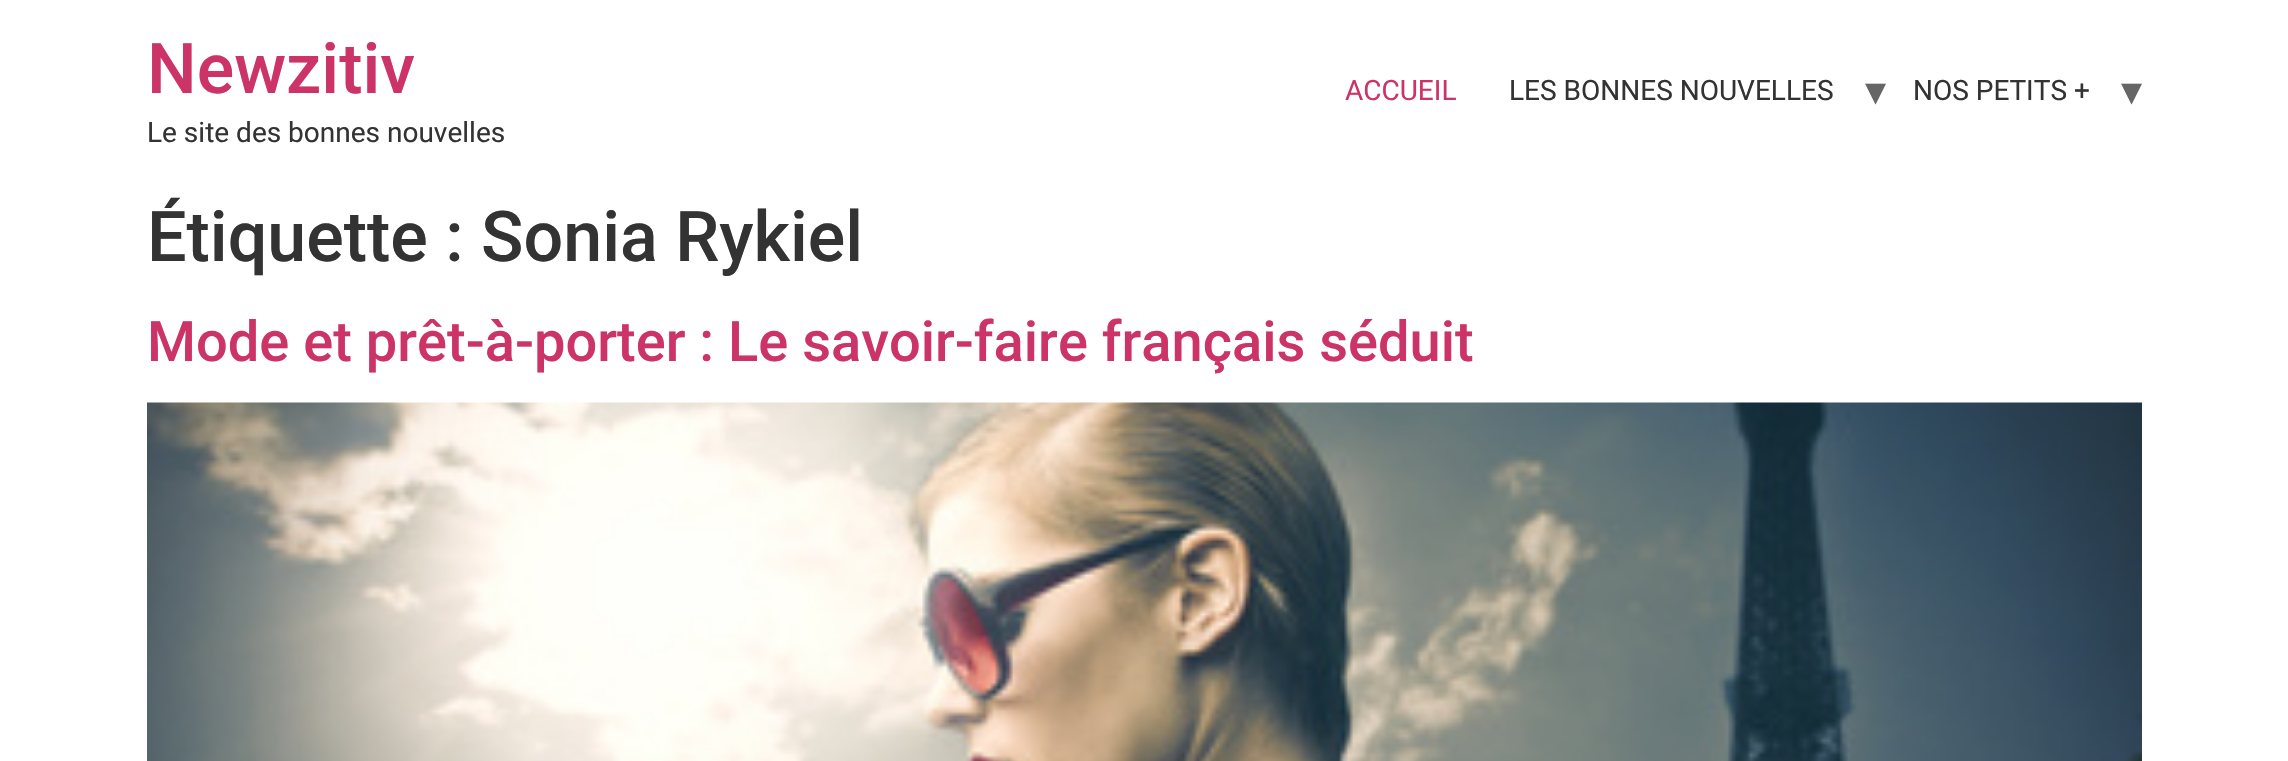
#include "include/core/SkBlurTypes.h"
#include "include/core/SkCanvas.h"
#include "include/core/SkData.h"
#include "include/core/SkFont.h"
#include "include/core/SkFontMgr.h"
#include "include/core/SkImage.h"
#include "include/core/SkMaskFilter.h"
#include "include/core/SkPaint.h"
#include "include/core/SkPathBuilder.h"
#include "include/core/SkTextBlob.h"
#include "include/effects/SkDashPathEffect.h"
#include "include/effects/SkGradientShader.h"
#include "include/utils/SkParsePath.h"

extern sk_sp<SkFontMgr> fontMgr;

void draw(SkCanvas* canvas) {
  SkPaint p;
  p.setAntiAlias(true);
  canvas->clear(SK_ColorWHITE);
  canvas->drawImageRect(SkImages::DeferredFromEncodedData(SkData::MakeFromFileName("images/1.png")), SkRect::MakeLTRB(147, 402, 2142, 761), SkSamplingOptions());
  SkFont font1(fontMgr->matchFamilyStyle("Roboto", SkFontStyle(500, SkFontStyle::kNormal_Width, SkFontStyle::kUpright_Slant)), 70);
  font1.setSubpixel(true);
  p.setColor(SkColorSetRGB(204, 51, 102));
  canvas->drawString("Newzitiv", 147, 93, font1, p);
  SkFont font2(fontMgr->matchFamilyStyle("Roboto", SkFontStyle::Normal()), 28);
  font2.setSubpixel(true);
  p.setColor(SkColorSetRGB(51, 51, 51));
  canvas->drawString("Le site des bonnes nouvelles", 147, 142, font2, p);
  p.setColor(SkColorSetRGB(204, 51, 102));
  canvas->drawString("ACCUEIL", 1345, 100, font2, p);
  p.setColor(SkColorSetRGB(51, 51, 51));
  canvas->drawString("LES BONNES NOUVELLES", 1509, 100, font2, p);
  SkFont font3(fontMgr->matchFamilyStyle("DejaVu Sans", SkFontStyle::Normal()), 42);
  font3.setSubpixel(true);
  p.setColor(SkColorSetRGB(102, 102, 102));
  canvas->drawString("▾", 1865, 105, font3, p);
  p.setColor(SkColorSetRGB(51, 51, 51));
  canvas->drawString("NOS PETITS +", 1913, 100, font2, p);
  p.setColor(SkColorSetRGB(102, 102, 102));
  canvas->drawString("▾", 2121, 105, font3, p);
  p.setColor(SkColorSetRGB(51, 51, 51));
  canvas->drawString("Étiquette : Sonia Rykiel", 147, 261, font1, p);
  SkFont font4(fontMgr->matchFamilyStyle("Roboto", SkFontStyle(500, SkFontStyle::kNormal_Width, SkFontStyle::kUpright_Slant)), 56);
  font4.setSubpixel(true);
  p.setColor(SkColorSetRGB(204, 51, 102));
  canvas->drawString("Mode et prêt-à-porter : Le savoir-faire français séduit", 147, 361, font4, p);
}
